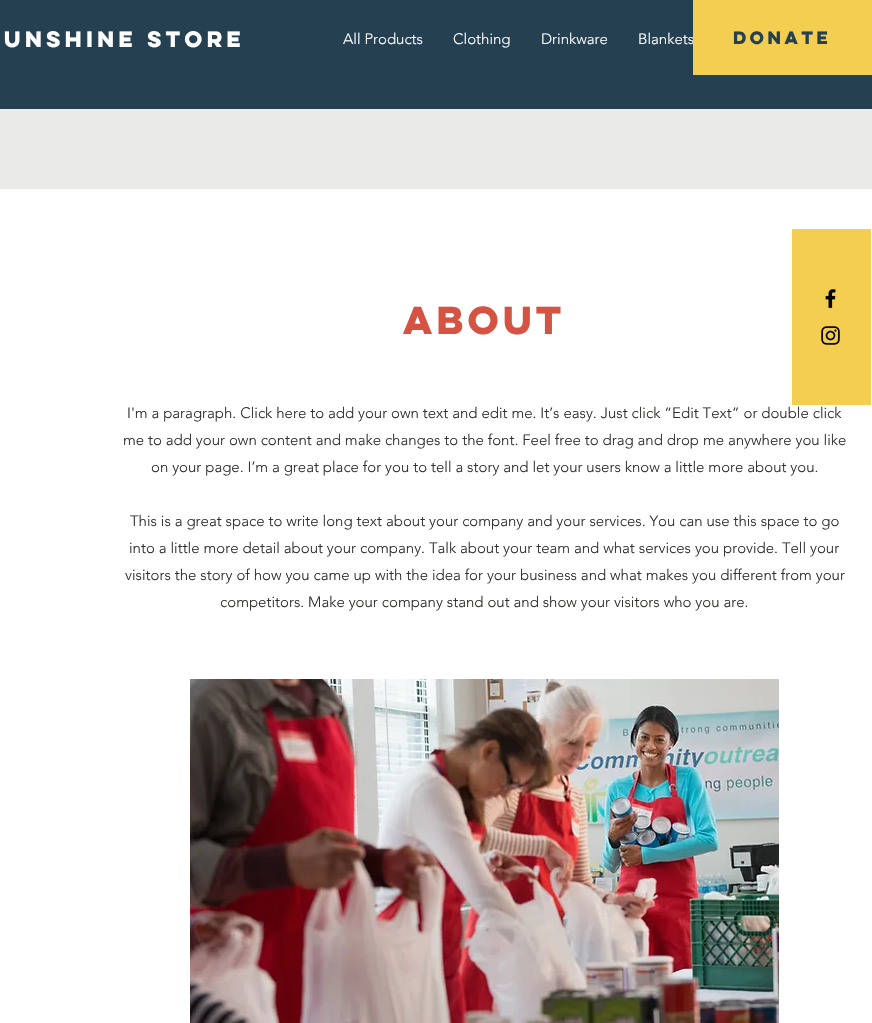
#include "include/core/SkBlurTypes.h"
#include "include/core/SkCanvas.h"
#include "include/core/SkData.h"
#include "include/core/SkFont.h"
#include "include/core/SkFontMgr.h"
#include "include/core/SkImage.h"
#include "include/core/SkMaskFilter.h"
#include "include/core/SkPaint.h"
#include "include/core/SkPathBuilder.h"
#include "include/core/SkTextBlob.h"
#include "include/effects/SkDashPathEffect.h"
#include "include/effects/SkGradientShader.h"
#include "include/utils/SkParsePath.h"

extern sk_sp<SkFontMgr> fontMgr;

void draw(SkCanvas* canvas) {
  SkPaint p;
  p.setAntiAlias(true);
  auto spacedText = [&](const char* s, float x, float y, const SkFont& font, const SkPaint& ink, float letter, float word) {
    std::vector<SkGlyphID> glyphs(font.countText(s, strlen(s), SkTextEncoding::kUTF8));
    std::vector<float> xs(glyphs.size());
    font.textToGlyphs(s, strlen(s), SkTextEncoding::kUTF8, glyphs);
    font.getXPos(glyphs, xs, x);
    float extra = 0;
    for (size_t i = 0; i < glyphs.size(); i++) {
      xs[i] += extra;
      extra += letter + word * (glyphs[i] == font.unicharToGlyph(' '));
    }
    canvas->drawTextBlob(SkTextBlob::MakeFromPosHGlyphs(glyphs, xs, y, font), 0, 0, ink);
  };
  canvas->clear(SkColorSetRGB(234, 234, 232));
  p.setColor(SkColorSetRGB(37, 65, 81));
  canvas->drawRect(SkRect::MakeLTRB(0, 0, 872, 109), p);
  p.setColor(SK_ColorWHITE);
  canvas->drawRect(SkRect::MakeLTRB(0, 189, 872, 1023), p);
  p.setColor(SkColorSetRGB(244, 206, 80));
  canvas->drawRect(SkRect::MakeLTRB(792, 229, 871, 405), p);
  canvas->drawImageRect(SkImages::DeferredFromEncodedData(SkData::MakeFromFileName("images/1.png")), SkRect::MakeLTRB(825, 289, 836, 309), SkSamplingOptions());
  canvas->drawImageRect(SkImages::DeferredFromEncodedData(SkData::MakeFromFileName("images/2.png")), SkRect::MakeLTRB(821, 326, 840, 345), SkSamplingOptions());
  canvas->drawImageRect(SkImages::DeferredFromEncodedData(SkData::MakeFromFileName("images/3.png")), SkRect::MakeLTRB(190, 679, 779, 1023), SkSamplingOptions());
  SkFont font1(fontMgr->matchFamilyStyle("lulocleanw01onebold", SkFontStyle::Bold()), 20);
  font1.setSubpixel(true);
  p.setColor(SK_ColorWHITE);
  canvas->drawString("UNSHINE STORE", 4, 47, font1, p);
  SkFont font2(fontMgr->matchFamilyStyle("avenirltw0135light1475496", SkFontStyle(300, SkFontStyle::kNormal_Width, SkFontStyle::kUpright_Slant)), 15);
  font2.setSubpixel(true);
  canvas->drawString("All Products", 343, 44, font2, p);
  canvas->drawString("Clothing", 453, 44, font2, p);
  canvas->drawString("Drinkware", 541, 44, font2, p);
  canvas->drawString("Blankets", 638, 44, font2, p);
  p.setColor(SkColorSetRGB(244, 206, 80));
  canvas->drawRect(SkRect::MakeLTRB(693, 0, 872, 75), p);
  SkFont font3(fontMgr->matchFamilyStyle("lulocleanw01onebold", SkFontStyle::Bold()), 16);
  font3.setSubpixel(true);
  p.setColor(SkColorSetRGB(37, 65, 81));
  canvas->drawString("DONATE", 733, 44, font3, p);
  SkFont font4(fontMgr->matchFamilyStyle("lulocleanw01onebold", SkFontStyle::Bold()), 35);
  font4.setSubpixel(true);
  p.setColor(SkColorSetRGB(213, 83, 66));
  spacedText("about", 403, 334, font4, p, -3.5f, 0);
  p.setColor(SkColorSetRGB(47, 47, 46));
  canvas->drawString("I'm a paragraph. Click here to add your own text and edit me. It’s easy. Just click “Edit Text” or double click", 127, 418, font2, p);
  canvas->drawString("me to add your own content and make changes to the font. Feel free to drag and drop me anywhere you like", 123, 445, font2, p);
  canvas->drawString("on your page. I’m a great place for you to tell a story and let your users know a little more about you.", 151, 472, font2, p);
  canvas->drawString("This is a great space to write long text about your company and your services. You can use this space to go", 130, 526, font2, p);
  canvas->drawString("into a little more detail about your company. Talk about your team and what services you provide. Tell your", 129, 553, font2, p);
  canvas->drawString("visitors the story of how you came up with the idea for your business and what makes you different from your", 125, 580, font2, p);
  canvas->drawString("competitors. Make your company stand out and show your visitors who you are.", 220, 607, font2, p);
}
